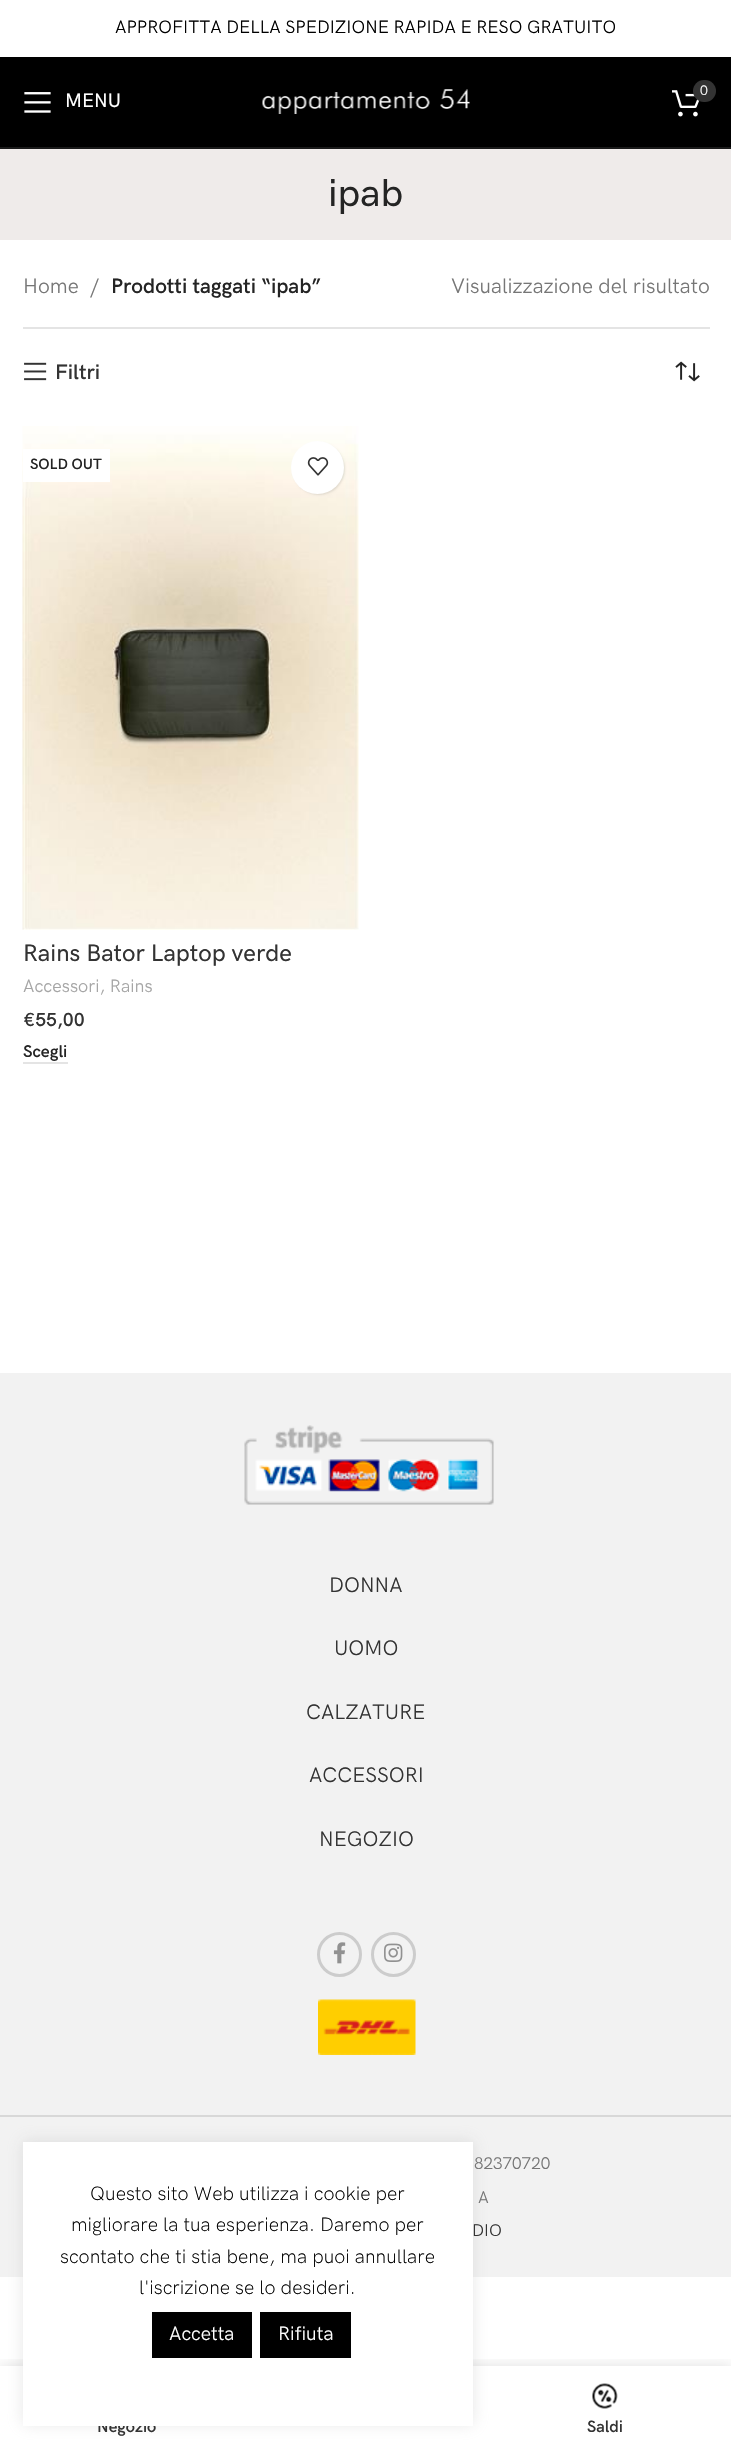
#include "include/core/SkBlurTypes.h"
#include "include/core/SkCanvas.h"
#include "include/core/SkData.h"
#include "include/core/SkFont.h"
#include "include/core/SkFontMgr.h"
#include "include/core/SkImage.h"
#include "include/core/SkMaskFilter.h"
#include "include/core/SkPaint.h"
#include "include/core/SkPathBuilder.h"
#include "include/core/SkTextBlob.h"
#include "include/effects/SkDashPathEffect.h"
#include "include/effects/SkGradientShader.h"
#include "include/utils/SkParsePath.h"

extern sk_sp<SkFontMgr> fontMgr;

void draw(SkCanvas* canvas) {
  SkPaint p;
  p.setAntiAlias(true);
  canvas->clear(SK_ColorWHITE);
  p.setColor(SK_ColorBLACK);
  canvas->drawRect(SkRect::MakeLTRB(0, 57, 731, 147), p);
  p.setColor(SkColorSetRGB(26, 26, 26));
  canvas->drawRect(SkRect::MakeLTRB(0, 147, 731, 149), p);
  canvas->drawImageRect(SkImages::DeferredFromEncodedData(SkData::MakeFromFileName("images/1.png")), SkRect::MakeLTRB(24, 92, 51, 113), SkSamplingOptions());
  canvas->drawImageRect(SkImages::DeferredFromEncodedData(SkData::MakeFromFileName("images/2.png")), SkRect::MakeLTRB(262, 89, 470, 114), SkSamplingOptions());
  canvas->drawImageRect(SkImages::DeferredFromEncodedData(SkData::MakeFromFileName("images/3.png")), SkRect::MakeLTRB(672, 90, 700, 117), SkSamplingOptions());
  p.setColor(SkColorSetRGB(51, 51, 51));
  canvas->drawRoundRect(SkRect::MakeLTRB(693, 80, 716, 102), 11, 11, p);
  p.setColor(SkColorSetRGB(239, 235, 234));
  canvas->drawRect(SkRect::MakeLTRB(0, 149, 731, 240), p);
  p.setColor(SkColorSetRGB(228, 228, 228));
  canvas->drawRect(SkRect::MakeLTRB(23, 327, 710, 329), p);
  canvas->drawImageRect(SkImages::DeferredFromEncodedData(SkData::MakeFromFileName("images/4.png")), SkRect::MakeLTRB(24, 362, 47, 381), SkSamplingOptions());
  canvas->drawImageRect(SkImages::DeferredFromEncodedData(SkData::MakeFromFileName("images/5.png")), SkRect::MakeLTRB(675, 361, 700, 382), SkSamplingOptions());
  canvas->drawImageRect(SkImages::DeferredFromEncodedData(SkData::MakeFromFileName("images/6.png")), SkRect::MakeLTRB(22, 426, 359, 930), SkSamplingOptions());
  p.setColor(SK_ColorWHITE);
  canvas->drawRect(SkRect::MakeLTRB(23, 449, 110, 482), p);
  p.setColor(SkColorSetARGB(26, 0, 0, 0));
  p.setMaskFilter(SkMaskFilter::MakeBlur(kNormal_SkBlurStyle, 1));
  canvas->drawRoundRect(SkRect::MakeLTRB(293, 443, 345, 495), 26, 26, p);
  p.setMaskFilter(nullptr);
  p.setColor(SK_ColorWHITE);
  canvas->drawCircle(317.5f, 467.5f, 26.5f, p);
  canvas->drawImageRect(SkImages::DeferredFromEncodedData(SkData::MakeFromFileName("images/7.png")), SkRect::MakeLTRB(307, 457, 329, 476), SkSamplingOptions());
  p.setColor(SkColorSetRGB(228, 228, 228));
  canvas->drawRect(SkRect::MakeLTRB(23, 1062, 68, 1064), p);
  p.setColor(SkColorSetRGB(242, 242, 242));
  canvas->drawRect(SkRect::MakeLTRB(0, 1373, 731, 2277), p);
  canvas->drawImageRect(SkImages::DeferredFromEncodedData(SkData::MakeFromFileName("images/8.png")), SkRect::MakeLTRB(244, 1425, 494, 1505), SkSamplingOptions());
  p.setStyle(SkPaint::kStroke_Style);
  p.setStrokeWidth(3);
  p.setColor(SkColorSetRGB(204, 204, 204));
  canvas->drawCircle(339.5f, 1954.5f, 21, p);
  canvas->drawImageRect(SkImages::DeferredFromEncodedData(SkData::MakeFromFileName("images/9.png")), SkRect::MakeLTRB(333, 1942, 346, 1964), SkSamplingOptions());
  canvas->drawCircle(393.5f, 1954.5f, 21, p);
  canvas->drawImageRect(SkImages::DeferredFromEncodedData(SkData::MakeFromFileName("images/10.png")), SkRect::MakeLTRB(384, 1943, 403, 1962), SkSamplingOptions());
  canvas->drawImageRect(SkImages::DeferredFromEncodedData(SkData::MakeFromFileName("images/11.png")), SkRect::MakeLTRB(318, 1999, 416, 2055), SkSamplingOptions());
  p.setStyle(SkPaint::kFill_Style);
  p.setColor(SkColorSetRGB(216, 216, 216));
  canvas->drawRect(SkRect::MakeLTRB(0, 2115, 731, 2117), p);
  p.setColor(SkColorSetARGB(77, 172, 171, 171));
  p.setMaskFilter(SkMaskFilter::MakeBlur(kNormal_SkBlurStyle, 7.5f));
  canvas->drawRect(SkRect::MakeLTRB(23, 2141, 473, 2424), p);
  p.setMaskFilter(nullptr);
  canvas->save();
  canvas->clipRect(SkRect::MakeLTRB(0, 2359, 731, 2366));
  p.setColor(SkColorSetARGB(31, 0, 0, 0));
  p.setMaskFilter(SkMaskFilter::MakeBlur(kNormal_SkBlurStyle, 7));
  canvas->drawRect(SkRect::MakeLTRB(0, 2366, 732, 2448), p);
  p.setMaskFilter(nullptr);
  canvas->restore();
  canvas->drawImageRect(SkImages::DeferredFromEncodedData(SkData::MakeFromFileName("images/12.png")), SkRect::MakeLTRB(592, 2383, 618, 2409), SkSamplingOptions());
  SkFont font1(fontMgr->matchFamilyStyle("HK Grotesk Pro", SkFontStyle::Normal()), 18);
  font1.setSubpixel(true);
  p.setColor(SK_ColorBLACK);
  canvas->drawString("APPROFITTA DELLA SPEDIZIONE RAPIDA E RESO GRATUITO", 115, 33, font1, p);
  SkFont font2(fontMgr->matchFamilyStyle("HK Grotesk Pro", SkFontStyle(500, SkFontStyle::kNormal_Width, SkFontStyle::kUpright_Slant)), 19.5f);
  font2.setSubpixel(true);
  p.setColor(SK_ColorWHITE);
  canvas->drawString("MENU", 65, 107, font2, p);
  SkFont font3(fontMgr->matchFamilyStyle("HK Grotesk Pro", SkFontStyle::Normal()), 14);
  font3.setSubpixel(true);
  canvas->drawString("0", 700, 95, font3, p);
  SkFont font4(fontMgr->matchFamilyStyle("HK Grotesk Pro", SkFontStyle(500, SkFontStyle::kNormal_Width, SkFontStyle::kUpright_Slant)), 39);
  font4.setSubpixel(true);
  p.setColor(SkColorSetRGB(36, 36, 36));
  canvas->drawString("ipab", 328, 206, font4, p);
  SkFont font5(fontMgr->matchFamilyStyle("HK Grotesk Pro", SkFontStyle::Normal()), 21);
  font5.setSubpixel(true);
  p.setColor(SkColorSetRGB(118, 118, 118));
  canvas->drawString("Home", 23, 293, font5, p);
  canvas->drawString("/", 90, 293, font5, p);
  SkFont font6(fontMgr->matchFamilyStyle("HK Grotesk Pro", SkFontStyle(600, SkFontStyle::kNormal_Width, SkFontStyle::kUpright_Slant)), 21);
  font6.setSubpixel(true);
  p.setColor(SkColorSetRGB(36, 36, 36));
  canvas->drawString("Prodotti taggati “ipab”", 111, 293, font6, p);
  p.setColor(SkColorSetRGB(118, 118, 118));
  canvas->drawString("Visualizzazione del risultato", 451, 293, font5, p);
  p.setColor(SkColorSetRGB(51, 51, 51));
  canvas->drawString("Filtri", 55, 379, font6, p);
  SkFont font7(fontMgr->matchFamilyStyle("HK Grotesk Pro", SkFontStyle(600, SkFontStyle::kNormal_Width, SkFontStyle::kUpright_Slant)), 15);
  font7.setSubpixel(true);
  p.setColor(SkColorSetRGB(36, 36, 36));
  canvas->drawString("SOLD OUT", 30, 469, font7, p);
  SkFont font8(fontMgr->matchFamilyStyle("HK Grotesk Pro", SkFontStyle(500, SkFontStyle::kNormal_Width, SkFontStyle::kUpright_Slant)), 24);
  font8.setSubpixel(true);
  p.setColor(SkColorSetRGB(51, 51, 51));
  canvas->drawString("Rains Bator Laptop verde", 23, 961, font8, p);
  p.setColor(SkColorSetRGB(165, 165, 165));
  canvas->drawString("Accessori, Rains", 23, 992, font1, p);
  SkFont font9(fontMgr->matchFamilyStyle("HK Grotesk Pro", SkFontStyle(600, SkFontStyle::kNormal_Width, SkFontStyle::kUpright_Slant)), 19);
  font9.setSubpixel(true);
  p.setColor(SkColorSetRGB(51, 51, 51));
  canvas->drawString("€55,00", 23, 1026, font9, p);
  SkFont font10(fontMgr->matchFamilyStyle("HK Grotesk Pro", SkFontStyle(600, SkFontStyle::kNormal_Width, SkFontStyle::kUpright_Slant)), 17);
  font10.setSubpixel(true);
  p.setColor(SkColorSetRGB(36, 36, 36));
  canvas->drawString("Scegli", 23, 1057, font10, p);
  p.setColor(SkColorSetRGB(51, 51, 51));
  canvas->drawString("DONNA", 329, 1592, font5, p);
  canvas->drawString("UOMO", 334, 1655, font5, p);
  canvas->drawString("CALZATURE", 306, 1719, font5, p);
  canvas->drawString("ACCESSORI", 309, 1782, font5, p);
  canvas->drawString("NEGOZIO", 319, 1846, font5, p);
  SkFont font11(fontMgr->matchFamilyStyle("HK Grotesk Pro", SkFontStyle::Normal()), 17);
  font11.setSubpixel(true);
  p.setColor(SkColorSetRGB(118, 118, 118));
  canvas->drawString("82370720", 474, 2169, font11, p);
  canvas->drawString("A", 478, 2203, font11, p);
  p.setColor(SkColorSetRGB(51, 51, 51));
  canvas->drawString("DIO", 472, 2236, font11, p);
  SkFont font12(fontMgr->matchFamilyStyle("HK Grotesk Pro", SkFontStyle(600, SkFontStyle::kNormal_Width, SkFontStyle::kUpright_Slant)), 16.5f);
  font12.setSubpixel(true);
  canvas->drawString("Negozio", 97, 2432, font12, p);
  p.setColor(SK_ColorWHITE);
  canvas->drawRect(SkRect::MakeLTRB(23, 2142, 473, 2426), p);
  p.setColor(SK_ColorBLACK);
  canvas->drawRect(SkRect::MakeLTRB(260, 2312, 351, 2358), p);
  SkFont font13(fontMgr->matchFamilyStyle("HK Grotesk Pro", SkFontStyle::Normal()), 19.5f);
  font13.setSubpixel(true);
  p.setColor(SK_ColorWHITE);
  canvas->drawString("Rifiuta", 278, 2340, font13, p);
  p.setColor(SK_ColorBLACK);
  canvas->drawRect(SkRect::MakeLTRB(152, 2312, 252, 2358), p);
  p.setColor(SK_ColorWHITE);
  canvas->drawString("Accetta", 169, 2340, font13, p);
  SkFont font14(fontMgr->matchFamilyStyle("HK Grotesk Pro", SkFontStyle(300, SkFontStyle::kNormal_Width, SkFontStyle::kUpright_Slant)), 19.5f);
  font14.setSubpixel(true);
  p.setColor(SK_ColorBLACK);
  canvas->drawString("l'iscrizione se lo desideri.", 139, 2294, font14, p);
  canvas->drawString("scontato che ti stia bene, ma puoi annullare", 60, 2263, font14, p);
  canvas->drawString("migliorare la tua esperienza. Daremo per", 71, 2231, font14, p);
  canvas->drawString("Questo sito Web utilizza i cookie per", 90, 2200, font14, p);
  p.setColor(SkColorSetRGB(51, 51, 51));
  canvas->drawString("Saldi", 587, 2432, font12, p);
}
